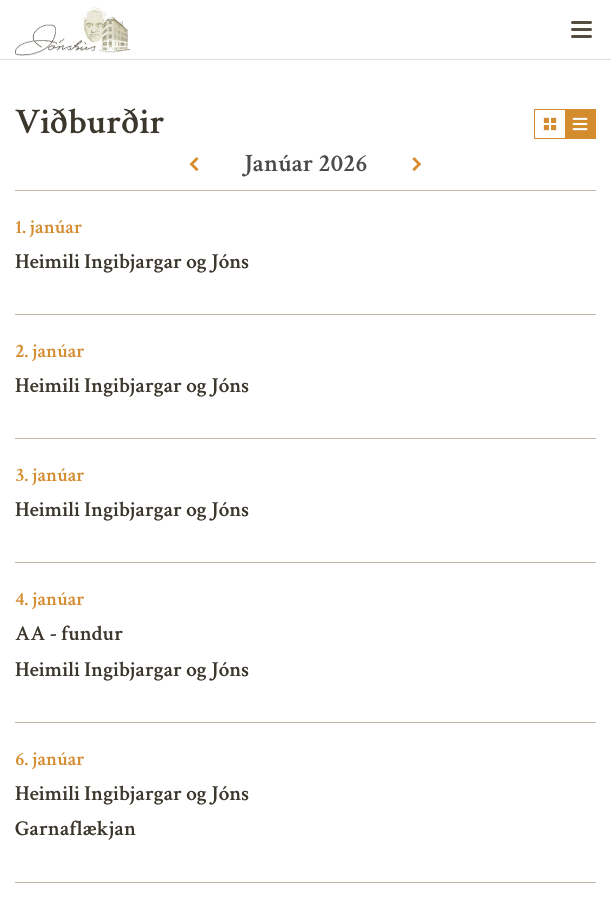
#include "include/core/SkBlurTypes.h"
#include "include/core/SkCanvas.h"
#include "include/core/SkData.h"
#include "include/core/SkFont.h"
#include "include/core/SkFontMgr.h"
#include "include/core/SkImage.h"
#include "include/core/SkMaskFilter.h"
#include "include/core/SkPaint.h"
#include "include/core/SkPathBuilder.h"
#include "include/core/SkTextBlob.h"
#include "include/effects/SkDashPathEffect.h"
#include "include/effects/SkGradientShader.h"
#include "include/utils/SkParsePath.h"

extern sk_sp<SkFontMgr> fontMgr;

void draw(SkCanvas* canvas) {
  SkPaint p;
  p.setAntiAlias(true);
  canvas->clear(SK_ColorWHITE);
  p.setColor(SkColorSetRGB(223, 223, 223));
  canvas->drawRect(SkRect::MakeLTRB(0, 59, 611, 60), p);
  canvas->drawImageRect(SkImages::DeferredFromEncodedData(SkData::MakeFromFileName("images/1.png")), SkRect::MakeLTRB(15, 6, 131, 56), SkSamplingOptions());
  canvas->drawImageRect(SkImages::DeferredFromEncodedData(SkData::MakeFromFileName("images/2.png")), SkRect::MakeLTRB(571, 21, 592, 38), SkSamplingOptions());
  p.setColor(SkColorSetRGB(213, 140, 47));
  canvas->drawRect(SkRect::MakeLTRB(565, 110, 595, 138), p);
  p.setStyle(SkPaint::kStroke_Style);
  p.setStrokeWidth(1);
  canvas->drawRect(SkRect::MakeLTRB(534.5f, 109.5f, 595.5f, 138.5f), p);
  canvas->drawImageRect(SkImages::DeferredFromEncodedData(SkData::MakeFromFileName("images/3.png")), SkRect::MakeLTRB(543, 117, 557, 131), SkSamplingOptions());
  canvas->drawImageRect(SkImages::DeferredFromEncodedData(SkData::MakeFromFileName("images/4.png")), SkRect::MakeLTRB(572, 117, 588, 131), SkSamplingOptions());
  canvas->drawImageRect(SkImages::DeferredFromEncodedData(SkData::MakeFromFileName("images/5.png")), SkRect::MakeLTRB(189, 157, 199, 172), SkSamplingOptions());
  canvas->drawImageRect(SkImages::DeferredFromEncodedData(SkData::MakeFromFileName("images/6.png")), SkRect::MakeLTRB(412, 157, 422, 172), SkSamplingOptions());
  p.setStyle(SkPaint::kFill_Style);
  p.setColor(SkColorSetRGB(194, 183, 167));
  canvas->drawRect(SkRect::MakeLTRB(15, 190, 596, 191), p);
  canvas->drawRect(SkRect::MakeLTRB(15, 314, 596, 315), p);
  canvas->drawRect(SkRect::MakeLTRB(15, 438, 596, 439), p);
  canvas->drawRect(SkRect::MakeLTRB(15, 562, 596, 563), p);
  canvas->drawRect(SkRect::MakeLTRB(15, 722, 596, 723), p);
  canvas->drawRect(SkRect::MakeLTRB(15, 882, 596, 883), p);
  SkFont font1(fontMgr->matchFamilyStyle("Crimson Text", SkFontStyle(600, SkFontStyle::kNormal_Width, SkFontStyle::kUpright_Slant)), 36);
  font1.setSubpixel(true);
  p.setColor(SkColorSetRGB(60, 55, 45));
  canvas->drawString("Viðburðir", 15, 133, font1, p);
  SkFont font2(fontMgr->matchFamilyStyle("Crimson Text", SkFontStyle(600, SkFontStyle::kNormal_Width, SkFontStyle::kUpright_Slant)), 25);
  font2.setSubpixel(true);
  p.setColor(SkColorSetRGB(75, 75, 75));
  canvas->drawString("Janúar 2026", 244, 171, font2, p);
  SkFont font3(fontMgr->matchFamilyStyle("Crimson Text", SkFontStyle(600, SkFontStyle::kNormal_Width, SkFontStyle::kUpright_Slant)), 19.5f);
  font3.setSubpixel(true);
  p.setColor(SkColorSetRGB(213, 140, 47));
  canvas->drawString("1. janúar", 15, 233, font3, p);
  SkFont font4(fontMgr->matchFamilyStyle("Crimson Text", SkFontStyle(600, SkFontStyle::kNormal_Width, SkFontStyle::kUpright_Slant)), 21.25f);
  font4.setSubpixel(true);
  p.setColor(SkColorSetRGB(60, 55, 45));
  canvas->drawString("Heimili Ingibjargar og Jóns", 15, 268, font4, p);
  p.setColor(SkColorSetRGB(213, 140, 47));
  canvas->drawString("2. janúar", 15, 357, font3, p);
  p.setColor(SkColorSetRGB(60, 55, 45));
  canvas->drawString("Heimili Ingibjargar og Jóns", 15, 392, font4, p);
  p.setColor(SkColorSetRGB(213, 140, 47));
  canvas->drawString("3. janúar", 15, 481, font3, p);
  p.setColor(SkColorSetRGB(60, 55, 45));
  canvas->drawString("Heimili Ingibjargar og Jóns", 15, 516, font4, p);
  p.setColor(SkColorSetRGB(213, 140, 47));
  canvas->drawString("4. janúar", 15, 605, font3, p);
  p.setColor(SkColorSetRGB(60, 55, 45));
  canvas->drawString("AA - fundur", 15, 640, font4, p);
  canvas->drawString("Heimili Ingibjargar og Jóns", 15, 676, font4, p);
  p.setColor(SkColorSetRGB(213, 140, 47));
  canvas->drawString("6. janúar", 15, 765, font3, p);
  p.setColor(SkColorSetRGB(60, 55, 45));
  canvas->drawString("Heimili Ingibjargar og Jóns", 15, 800, font4, p);
  canvas->drawString("Garnaflækjan", 15, 835, font4, p);
}
